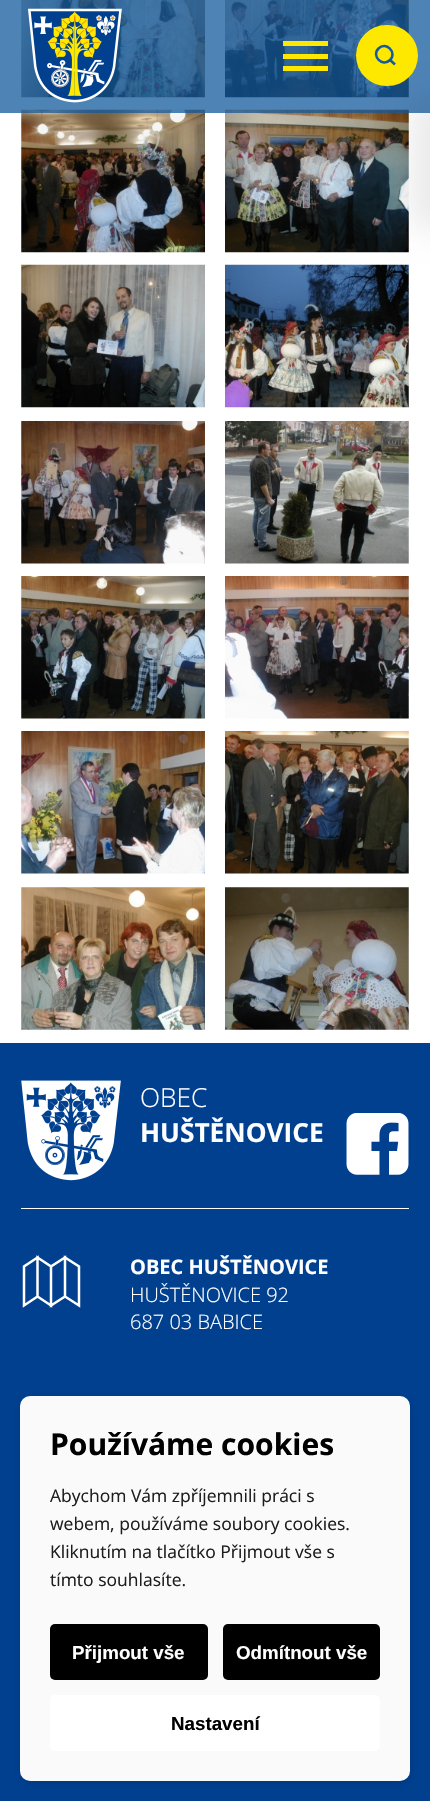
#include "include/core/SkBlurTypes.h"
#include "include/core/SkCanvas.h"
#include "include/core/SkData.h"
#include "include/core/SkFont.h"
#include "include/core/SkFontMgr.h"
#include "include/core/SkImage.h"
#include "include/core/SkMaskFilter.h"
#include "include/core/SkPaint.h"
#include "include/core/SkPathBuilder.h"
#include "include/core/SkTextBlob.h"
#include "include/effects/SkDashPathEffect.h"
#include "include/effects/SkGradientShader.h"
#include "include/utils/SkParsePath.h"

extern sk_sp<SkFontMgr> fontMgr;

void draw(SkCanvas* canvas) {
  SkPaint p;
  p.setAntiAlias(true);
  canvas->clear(SK_ColorWHITE);
  canvas->drawImageRect(SkImages::DeferredFromEncodedData(SkData::MakeFromFileName("images/2.png")), SkRect::MakeLTRB(21, 0, 205, 98), SkSamplingOptions());
  canvas->drawImageRect(SkImages::DeferredFromEncodedData(SkData::MakeFromFileName("images/3.png")), SkRect::MakeLTRB(225, 0, 409, 98), SkSamplingOptions());
  canvas->drawImageRect(SkImages::DeferredFromEncodedData(SkData::MakeFromFileName("images/4.png")), SkRect::MakeLTRB(21, 109, 205, 253), SkSamplingOptions());
  canvas->drawImageRect(SkImages::DeferredFromEncodedData(SkData::MakeFromFileName("images/5.png")), SkRect::MakeLTRB(225, 109, 409, 253), SkSamplingOptions());
  p.setColor(SkColorSetARGB(191, 19, 90, 157));
  canvas->drawRect(SkRect::MakeLTRB(0, 0, 430, 113), p);
  canvas->drawImageRect(SkImages::DeferredFromEncodedData(SkData::MakeFromFileName("images/1.png")), SkRect::MakeLTRB(28, 8, 122, 103), SkSamplingOptions());
  p.setColor(SkColorSetRGB(255, 232, 0));
  canvas->drawRect(SkRect::MakeLTRB(283, 54, 328, 59), p);
  canvas->drawRect(SkRect::MakeLTRB(283, 41, 328, 46), p);
  canvas->drawRect(SkRect::MakeLTRB(283, 66, 328, 71), p);
  canvas->drawRoundRect(SkRect::MakeLTRB(356, 25, 418, 86), 30.5f, 30.5f, p);
  canvas->drawImageRect(SkImages::DeferredFromEncodedData(SkData::MakeFromFileName("images/7.png")), SkRect::MakeLTRB(225, 264, 409, 408), SkSamplingOptions());
  p.setColor(SkColorSetARGB(20, 0, 0, 0));
  p.setMaskFilter(SkMaskFilter::MakeBlur(kNormal_SkBlurStyle, 15.5f));
  canvas->drawRect(SkRect::MakeLTRB(411, 98, 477, 229), p);
  p.setMaskFilter(nullptr);
  p.setStyle(SkPaint::kStroke_Style);
  p.setStrokeWidth(2.5f);
  p.setStrokeCap(SkPaint::kRound_Cap);
  p.setColor(SkColorSetRGB(20, 91, 157));
  canvas->drawPath(SkPathBuilder().moveTo(390, 60).cubicTo(382.5f, 67.5f, 371, 56, 378.5f, 48.5f).cubicTo(386, 41, 397.5f, 52.5f, 390, 60).close().moveTo(389.5f, 59.5f).lineTo(395, 64.5f).close().detach(), p);
  canvas->drawImageRect(SkImages::DeferredFromEncodedData(SkData::MakeFromFileName("images/6.png")), SkRect::MakeLTRB(21, 264, 205, 408), SkSamplingOptions());
  canvas->drawImageRect(SkImages::DeferredFromEncodedData(SkData::MakeFromFileName("images/8.png")), SkRect::MakeLTRB(21, 421, 205, 564), SkSamplingOptions());
  canvas->drawImageRect(SkImages::DeferredFromEncodedData(SkData::MakeFromFileName("images/9.png")), SkRect::MakeLTRB(225, 421, 409, 564), SkSamplingOptions());
  canvas->drawImageRect(SkImages::DeferredFromEncodedData(SkData::MakeFromFileName("images/10.png")), SkRect::MakeLTRB(21, 576, 205, 719), SkSamplingOptions());
  canvas->drawImageRect(SkImages::DeferredFromEncodedData(SkData::MakeFromFileName("images/11.png")), SkRect::MakeLTRB(225, 576, 409, 719), SkSamplingOptions());
  canvas->drawImageRect(SkImages::DeferredFromEncodedData(SkData::MakeFromFileName("images/12.png")), SkRect::MakeLTRB(21, 731, 205, 874), SkSamplingOptions());
  canvas->drawImageRect(SkImages::DeferredFromEncodedData(SkData::MakeFromFileName("images/13.png")), SkRect::MakeLTRB(225, 731, 409, 874), SkSamplingOptions());
  canvas->drawImageRect(SkImages::DeferredFromEncodedData(SkData::MakeFromFileName("images/14.png")), SkRect::MakeLTRB(21, 887, 205, 1030), SkSamplingOptions());
  canvas->drawImageRect(SkImages::DeferredFromEncodedData(SkData::MakeFromFileName("images/15.png")), SkRect::MakeLTRB(225, 887, 409, 1030), SkSamplingOptions());
  p.setStyle(SkPaint::kFill_Style);
  p.setColor(SkColorSetRGB(0, 64, 143));
  canvas->drawRect(SkRect::MakeLTRB(0, 1043, 430, 1801), p);
  p.setColor(SK_ColorWHITE);
  canvas->drawRect(SkRect::MakeLTRB(21, 1208, 409, 1209), p);
  canvas->drawImageRect(SkImages::DeferredFromEncodedData(SkData::MakeFromFileName("images/16.png")), SkRect::MakeLTRB(21, 1080, 121, 1181), SkSamplingOptions());
  canvas->drawImageRect(SkImages::DeferredFromEncodedData(SkData::MakeFromFileName("images/17.png")), SkRect::MakeLTRB(346, 1113, 409, 1175), SkSamplingOptions());
  p.setStyle(SkPaint::kStroke_Style);
  canvas->drawPath(SkPathBuilder().moveTo(37.5f, 1296.5f).lineTo(24, 1305.5f).lineTo(24, 1266.5f).lineTo(37.5f, 1257.5f).close().moveTo(37.5f, 1296.5f).lineTo(51, 1305.5f).lineTo(51, 1266.5f).lineTo(37.5f, 1257.5f).close().moveTo(65, 1296.5f).lineTo(51, 1305.5f).lineTo(51, 1266.5f).lineTo(65, 1257.5f).close().moveTo(65, 1296.5f).lineTo(79, 1305.5f).lineTo(79, 1266.5f).lineTo(65, 1257.5f).close().detach(), p);
  p.setStyle(SkPaint::kFill_Style);
  p.setColor(SkColorSetARGB(51, 0, 0, 0));
  p.setMaskFilter(SkMaskFilter::MakeBlur(kNormal_SkBlurStyle, 5));
  canvas->drawRoundRect(SkRect::MakeLTRB(23, 1401, 408, 1781), 8, 8, p);
  p.setMaskFilter(nullptr);
  p.setColor(SkColorSetRGB(250, 250, 250));
  canvas->drawRoundRect(SkRect::MakeLTRB(20, 1396, 410, 1781), 10, 10, p);
  p.setColor(SK_ColorBLACK);
  canvas->drawRoundRect(SkRect::MakeLTRB(50, 1624, 208, 1680), 5, 5, p);
  canvas->drawRoundRect(SkRect::MakeLTRB(223, 1624, 380, 1680), 5, 5, p);
  p.setColor(SK_ColorWHITE);
  canvas->drawRoundRect(SkRect::MakeLTRB(50, 1695, 380, 1751), 5, 5, p);
  SkFont font1(fontMgr->matchFamilyStyle("Open Sans", SkFontStyle(300, SkFontStyle::kNormal_Width, SkFontStyle::kUpright_Slant)), 26.25f);
  font1.setSubpixel(true);
  canvas->drawString("OBEC", 140, 1107, font1, p);
  SkFont font2(fontMgr->matchFamilyStyle("Open Sans", SkFontStyle::Bold()), 26.25f);
  font2.setSubpixel(true);
  canvas->drawString("HUŠTĚNOVICE", 140, 1142, font2, p);
  SkFont font3(fontMgr->matchFamilyStyle("Open Sans", SkFontStyle::Bold()), 20);
  font3.setSubpixel(true);
  canvas->drawString("OBEC HUŠTĚNOVICE", 130, 1274, font3, p);
  SkFont font4(fontMgr->matchFamilyStyle("Open Sans", SkFontStyle(300, SkFontStyle::kNormal_Width, SkFontStyle::kUpright_Slant)), 20);
  font4.setSubpixel(true);
  canvas->drawString("HUŠTĚNOVICE 92", 130, 1302, font4, p);
  canvas->drawString("687 03 BABICE", 130, 1329, font4, p);
  SkFont font5(fontMgr->matchFamilyStyle("Open Sans", SkFontStyle::Bold()), 30);
  font5.setSubpixel(true);
  p.setColor(SK_ColorBLACK);
  canvas->drawString("Používáme cookies", 50, 1455, font5, p);
  SkFont font6(fontMgr->matchFamilyStyle("Open Sans", SkFontStyle::Normal()), 17.5f);
  font6.setSubpixel(true);
  p.setColor(SkColorSetRGB(29, 29, 29));
  canvas->drawString("Abychom Vám zpříjemnili práci s", 50, 1502, font6, p);
  canvas->drawString("webem, používáme soubory cookies.", 50, 1530, font6, p);
  canvas->drawString("Kliknutím na tlačítko Přijmout vše s", 50, 1558, font6, p);
  canvas->drawString("tímto souhlasíte.", 50, 1586, font6, p);
  SkFont font7(fontMgr->matchFamilyStyle("Liberation Sans", SkFontStyle::Bold()), 18.75f);
  font7.setSubpixel(true);
  p.setColor(SK_ColorWHITE);
  canvas->drawString("Přijmout vše", 72, 1659, font7, p);
  canvas->drawString("Odmítnout vše", 236, 1659, font7, p);
  p.setColor(SK_ColorBLACK);
  canvas->drawString("Nastavení", 171, 1730, font7, p);
}
